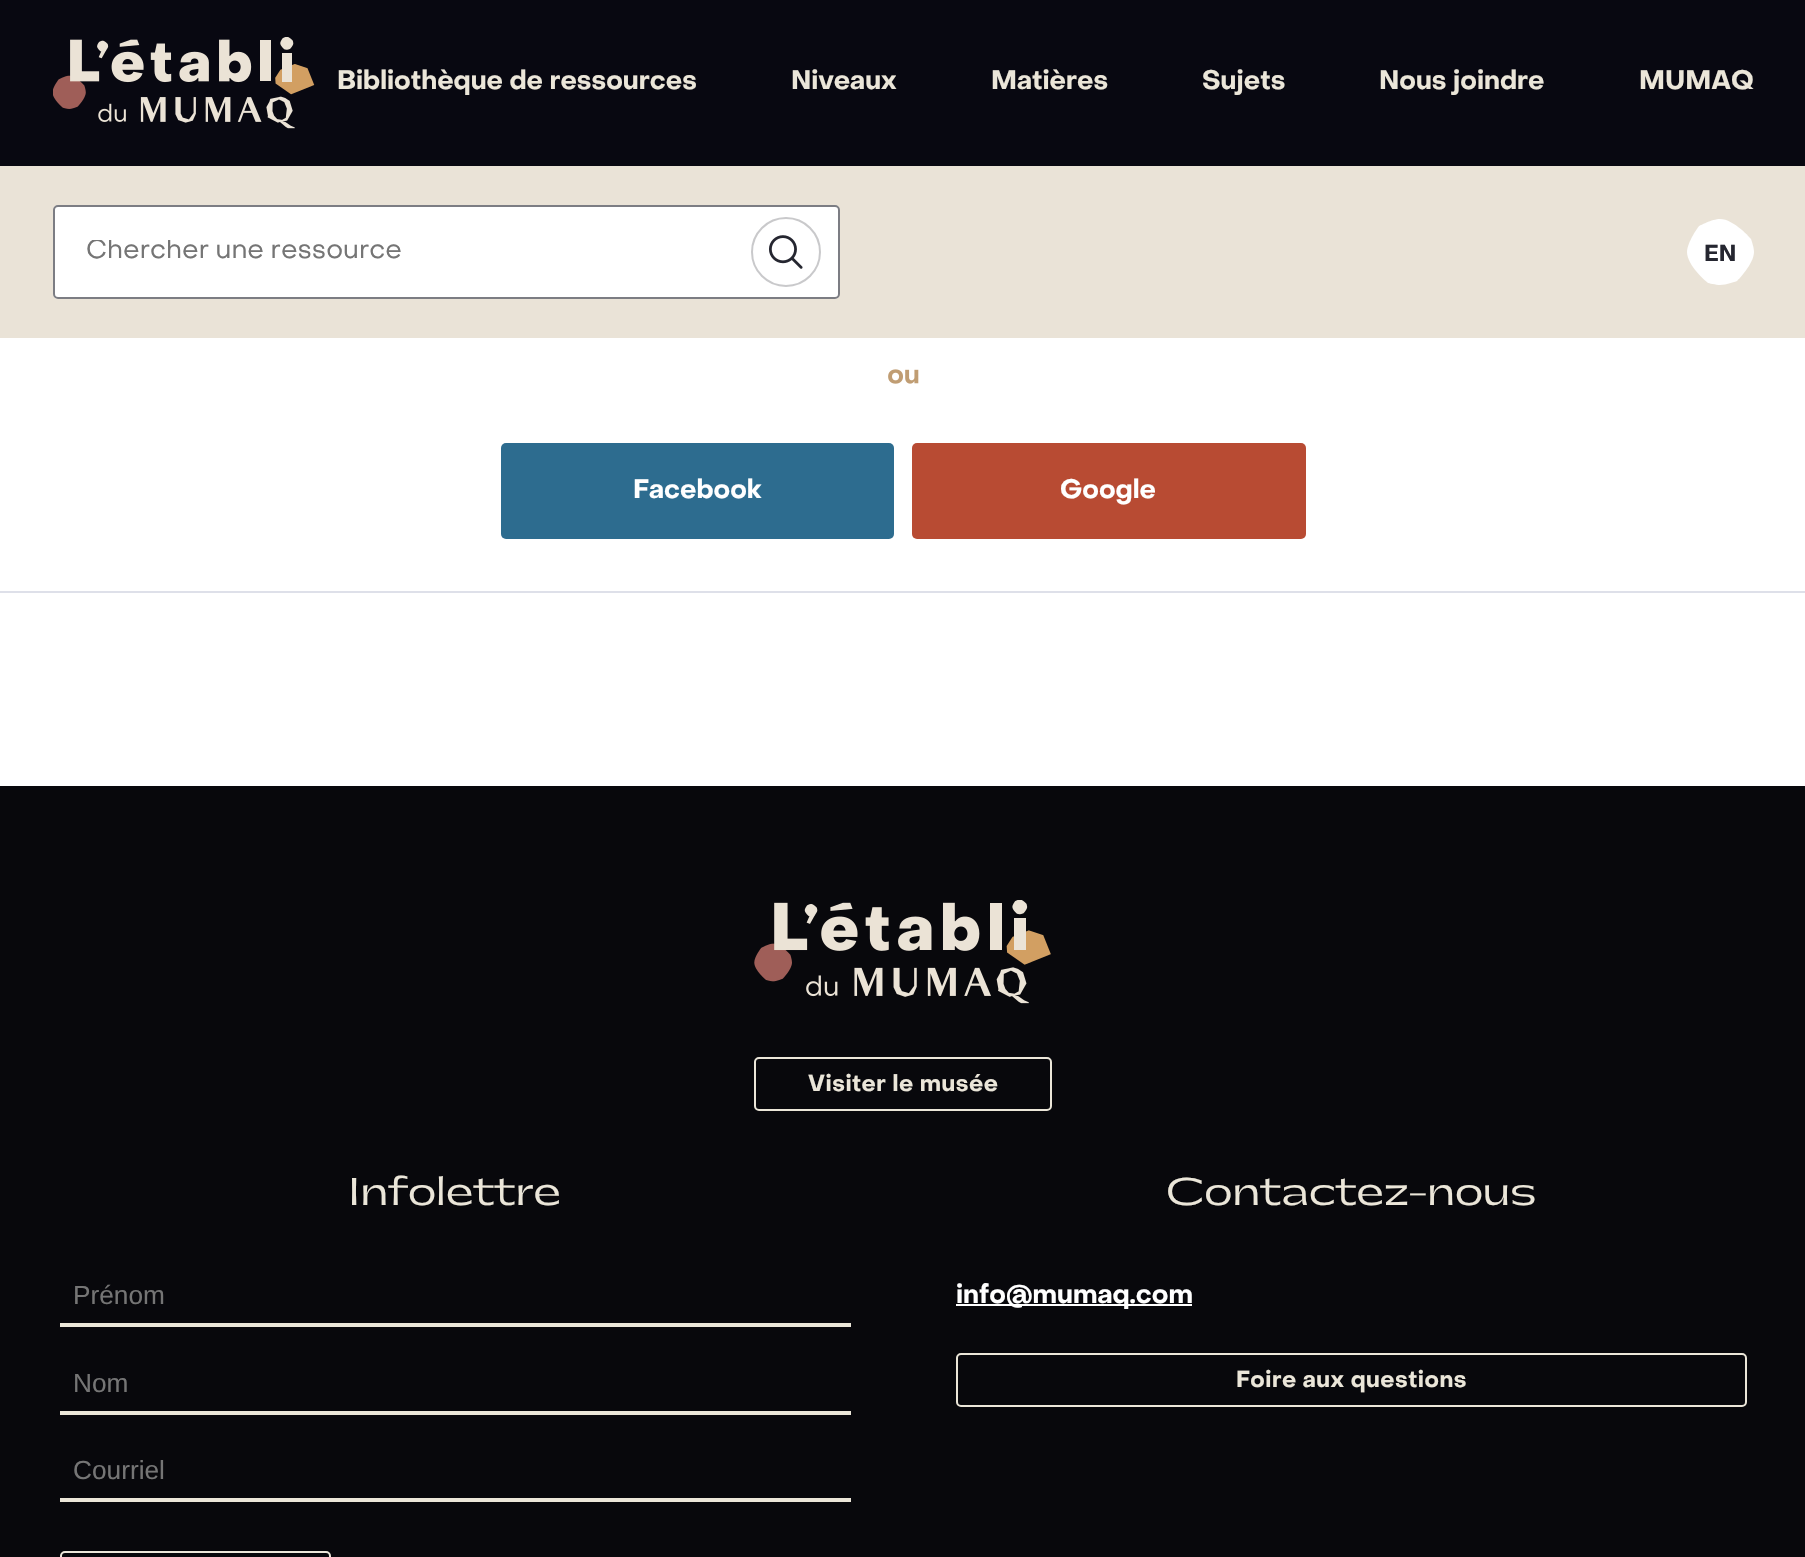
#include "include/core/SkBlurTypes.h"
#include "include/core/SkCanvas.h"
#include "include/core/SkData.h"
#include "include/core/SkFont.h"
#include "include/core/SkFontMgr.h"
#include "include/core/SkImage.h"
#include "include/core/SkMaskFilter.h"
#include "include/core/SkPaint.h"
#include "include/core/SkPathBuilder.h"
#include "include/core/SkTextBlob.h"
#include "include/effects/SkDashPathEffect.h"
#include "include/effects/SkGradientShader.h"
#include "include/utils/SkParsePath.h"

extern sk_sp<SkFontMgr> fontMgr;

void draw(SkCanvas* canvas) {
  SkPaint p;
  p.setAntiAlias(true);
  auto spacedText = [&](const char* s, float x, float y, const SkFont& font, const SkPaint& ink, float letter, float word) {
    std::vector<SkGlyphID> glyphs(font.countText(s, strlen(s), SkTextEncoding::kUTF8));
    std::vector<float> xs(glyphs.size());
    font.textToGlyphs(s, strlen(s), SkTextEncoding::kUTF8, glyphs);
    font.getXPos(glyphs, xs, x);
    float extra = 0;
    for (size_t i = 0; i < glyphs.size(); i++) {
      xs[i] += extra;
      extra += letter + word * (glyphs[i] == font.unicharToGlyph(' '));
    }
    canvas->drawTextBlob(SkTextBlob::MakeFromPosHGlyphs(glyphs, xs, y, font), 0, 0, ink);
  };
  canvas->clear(SK_ColorWHITE);
  p.setStyle(SkPaint::kStroke_Style);
  p.setStrokeWidth(2);
  p.setColor(SkColorSetRGB(222, 224, 233));
  canvas->drawRect(SkRect::MakeLTRB(-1, -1, 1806, 592), p);
  p.setStyle(SkPaint::kFill_Style);
  p.setColor(SkColorSetRGB(8, 8, 17));
  canvas->drawRect(SkRect::MakeLTRB(0, 0, 1805, 166), p);
  canvas->drawImageRect(SkImages::DeferredFromEncodedData(SkData::MakeFromFileName("images/1.png")), SkRect::MakeLTRB(53, 37, 315, 129), SkSamplingOptions());
  p.setColor(SkColorSetRGB(234, 227, 215));
  canvas->drawRect(SkRect::MakeLTRB(0, 166, 1805, 338), p);
  p.setColor(SK_ColorWHITE);
  canvas->drawRoundRect(SkRect::MakeLTRB(53, 205, 840, 299), 5, 5, p);
  p.setStyle(SkPaint::kStroke_Style);
  p.setColor(SkColorSetARGB(153, 37, 38, 48));
  canvas->drawRoundRect(SkRect::MakeLTRB(54, 206, 839, 298), 4, 4, p);
  canvas->drawImageRect(SkImages::DeferredFromEncodedData(SkData::MakeFromFileName("images/2.png")), SkRect::MakeLTRB(769, 235, 803, 269), SkSamplingOptions());
  p.setColor(SkColorSetRGB(201, 201, 203));
  canvas->drawCircle(786, 252, 34, p);
  p.setStyle(SkPaint::kFill_Style);
  p.setColor(SK_ColorWHITE);
  canvas->drawPath(SkPathBuilder().moveTo(1754, 252).cubicTo(1754, 264, 1737, 281, 1737, 281).cubicTo(1737, 281, 1726, 285, 1720, 285).cubicTo(1716, 285, 1708, 283, 1708, 283).cubicTo(1708, 283, 1687, 266, 1687, 252).cubicTo(1687, 242, 1699, 226, 1699, 226).cubicTo(1699, 226, 1712, 219, 1720, 219).cubicTo(1734, 219, 1751, 239, 1751, 239).cubicTo(1751, 239, 1754, 247, 1754, 252).close().detach(), p);
  canvas->drawImageRect(SkImages::DeferredFromEncodedData(SkData::MakeFromFileName("images/3.png")), SkRect::MakeLTRB(888, 369, 919, 384), SkSamplingOptions());
  p.setColor(SkColorSetRGB(45, 108, 143));
  canvas->drawRoundRect(SkRect::MakeLTRB(501, 443, 894, 539), 5, 5, p);
  p.setColor(SkColorSetRGB(184, 75, 51));
  canvas->drawRoundRect(SkRect::MakeLTRB(912, 443, 1306, 539), 5, 5, p);
  p.setColor(SkColorSetRGB(8, 8, 12));
  canvas->drawRect(SkRect::MakeLTRB(0, 786, 1805, 1557), p);
  canvas->drawImageRect(SkImages::DeferredFromEncodedData(SkData::MakeFromFileName("images/4.png")), SkRect::MakeLTRB(754, 900, 1051, 1004), SkSamplingOptions());
  p.setStyle(SkPaint::kStroke_Style);
  p.setColor(SkColorSetRGB(235, 230, 217));
  canvas->drawRoundRect(SkRect::MakeLTRB(755, 1058, 1051, 1110), 4, 4, p);
  p.setStyle(SkPaint::kFill_Style);
  canvas->drawRect(SkRect::MakeLTRB(60, 1323, 851, 1327), p);
  canvas->drawRect(SkRect::MakeLTRB(60, 1411, 851, 1415), p);
  canvas->drawRect(SkRect::MakeLTRB(60, 1498, 851, 1502), p);
  p.setStyle(SkPaint::kStroke_Style);
  canvas->drawRoundRect(SkRect::MakeLTRB(61, 1552, 330, 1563), 4, 4, p);
  p.setStyle(SkPaint::kFill_Style);
  p.setColor(SK_ColorWHITE);
  canvas->drawRect(SkRect::MakeLTRB(956, 1304, 1192, 1306), p);
  p.setStyle(SkPaint::kStroke_Style);
  p.setColor(SkColorSetRGB(235, 230, 217));
  canvas->drawRoundRect(SkRect::MakeLTRB(957, 1354, 1746, 1406), 4, 4, p);
  SkFont font1(fontMgr->matchFamilyStyle("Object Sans", SkFontStyle::Bold()), 26.25f);
  font1.setSubpixel(true);
  p.setStyle(SkPaint::kFill_Style);
  canvas->drawString("Bibliothèque de ressources", 337, 89, font1, p);
  canvas->drawString("Niveaux", 791, 89, font1, p);
  canvas->drawString("Matières", 991, 89, font1, p);
  canvas->drawString("Sujets", 1202, 89, font1, p);
  canvas->drawString("Nous joindre", 1379, 89, font1, p);
  canvas->drawString("MUMAQ", 1639, 89, font1, p);
  canvas->save();
  canvas->clipRect(SkRect::MakeLTRB(86, 240, 620, 266));
  SkFont font2(fontMgr->matchFamilyStyle("Object Sans", SkFontStyle::Normal()), 26.25f);
  font2.setSubpixel(true);
  p.setColor(SkColorSetRGB(117, 117, 117));
  canvas->drawString("Chercher une ressource", 86, 258, font2, p);
  canvas->restore();
  SkFont font3(fontMgr->matchFamilyStyle("Object Sans", SkFontStyle::Bold()), 22.75f);
  font3.setSubpixel(true);
  p.setColor(SkColorSetRGB(37, 38, 48));
  canvas->drawString("EN", 1704, 261, font3, p);
  p.setColor(SK_ColorWHITE);
  canvas->drawString("Facebook", 633, 498, font1, p);
  canvas->drawString("Google", 1060, 498, font1, p);
  p.setColor(SkColorSetRGB(235, 230, 217));
  spacedText("Visiter le musée", 808, 1091, font3, p, 0.5f, 0);
  SkFont font4(fontMgr->matchFamilyStyle("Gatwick", SkFontStyle::Normal()), 36.75f);
  font4.setSubpixel(true);
  canvas->drawString("Infolettre", 348, 1205, font4, p);
  SkFont font5(fontMgr->matchFamilyStyle("Liberation Sans", SkFontStyle::Normal()), 26.25f);
  font5.setSubpixel(true);
  p.setColor(SkColorSetRGB(117, 117, 117));
  canvas->drawString("Prénom", 73, 1304, font5, p);
  canvas->drawString("Nom", 73, 1392, font5, p);
  canvas->drawString("Courriel", 73, 1479, font5, p);
  p.setColor(SkColorSetRGB(235, 230, 217));
  canvas->drawString("Contactez-nous", 1166, 1205, font4, p);
  p.setColor(SK_ColorWHITE);
  canvas->drawString("info@mumaq.com", 956, 1303, font1, p);
  p.setColor(SkColorSetRGB(235, 230, 217));
  spacedText("Foire aux questions", 1236, 1387, font3, p, 0.5f, 0);
}
